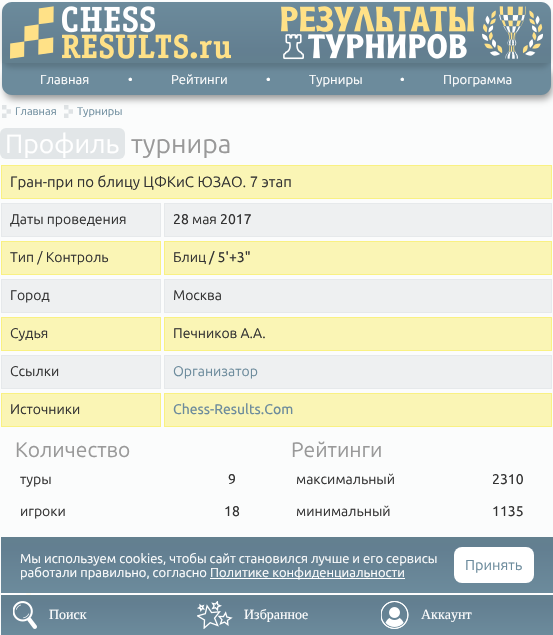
#include "include/core/SkBlurTypes.h"
#include "include/core/SkCanvas.h"
#include "include/core/SkData.h"
#include "include/core/SkFont.h"
#include "include/core/SkFontMgr.h"
#include "include/core/SkImage.h"
#include "include/core/SkMaskFilter.h"
#include "include/core/SkPaint.h"
#include "include/core/SkPathBuilder.h"
#include "include/core/SkTextBlob.h"
#include "include/effects/SkDashPathEffect.h"
#include "include/effects/SkGradientShader.h"
#include "include/utils/SkParsePath.h"

extern sk_sp<SkFontMgr> fontMgr;

void draw(SkCanvas* canvas) {
  SkPaint p;
  p.setAntiAlias(true);
  canvas->clear(SkColorSetRGB(251, 252, 252));
  canvas->drawImageRect(SkImages::DeferredFromEncodedData(SkData::MakeFromFileName("images/5.png")), SkRect::MakeLTRB(2, 105, 11, 118), SkSamplingOptions());
  canvas->drawImageRect(SkImages::DeferredFromEncodedData(SkData::MakeFromFileName("images/5.png")), SkRect::MakeLTRB(64, 105, 73, 118), SkSamplingOptions());
  p.setColor(SkColorSetARGB(102, 0, 0, 0));
  p.setMaskFilter(SkMaskFilter::MakeBlur(kNormal_SkBlurStyle, 3.5f));
  canvas->drawRoundRect(SkRect::MakeLTRB(5, 69, 552, 99), 9, 9, p);
  p.setMaskFilter(nullptr);
  p.setColor(SkColorSetRGB(108, 139, 156));
  canvas->drawPath(SkPathBuilder().moveTo(2, 63).lineTo(551, 63).lineTo(551, 85).cubicTo(551, 90.5f, 546.5f, 95, 541, 95).lineTo(12, 95).cubicTo(6.5f, 95, 2, 90.5f, 2, 85).close().detach(), p);
  p.setColor(SkColorSetARGB(38, 0, 0, 0));
  p.setMaskFilter(SkMaskFilter::MakeBlur(kNormal_SkBlurStyle, 2.5f));
  canvas->drawRoundRect(SkRect::MakeLTRB(2, 7, 551, 68), 10, 10, p);
  p.setMaskFilter(nullptr);
  {
    const SkColor colors[] = {SkColorSetRGB(108, 139, 156), SkColorSetRGB(99, 127, 145), SkColorSetRGB(99, 128, 143)};
    const float stops[] = {0, 0.78f, 1};
    const SkPoint ends[] = {{277, 2}, {277, 63}};
    p.setShader(SkGradientShader::MakeLinear(ends, colors, stops, 3, SkTileMode::kClamp));
    p.setAlpha(255);
  }
  canvas->drawPath(SkPathBuilder().moveTo(12, 2).lineTo(541, 2).cubicTo(546.5f, 2, 551, 6.5f, 551, 12).lineTo(551, 63).lineTo(2, 63).lineTo(2, 12).cubicTo(2, 6.5f, 6.5f, 2, 12, 2).close().detach(), p);
  canvas->drawImageRect(SkImages::DeferredFromEncodedData(SkData::MakeFromFileName("images/1.png")), SkRect::MakeLTRB(10, 6, 54, 59), SkSamplingOptions());
  canvas->drawImageRect(SkImages::DeferredFromEncodedData(SkData::MakeFromFileName("images/2.png")), SkRect::MakeLTRB(62, 6, 231, 59), SkSamplingOptions());
  canvas->drawImageRect(SkImages::DeferredFromEncodedData(SkData::MakeFromFileName("images/3.png")), SkRect::MakeLTRB(281, 6, 474, 60), SkSamplingOptions());
  canvas->drawImageRect(SkImages::DeferredFromEncodedData(SkData::MakeFromFileName("images/4.png")), SkRect::MakeLTRB(482, 6, 543, 59), SkSamplingOptions());
  p.setShader(nullptr);
  p.setColor(SkColorSetRGB(226, 230, 232));
  canvas->drawRoundRect(SkRect::MakeLTRB(0, 128, 125, 159), 6, 6, p);
  p.setColor(SkColorSetRGB(250, 245, 181));
  canvas->drawRect(SkRect::MakeLTRB(1.5f, 165.5f, 551.5f, 198.5f), p);
  p.setStyle(SkPaint::kStroke_Style);
  p.setStrokeWidth(1);
  p.setColor(SkColorSetRGB(249, 241, 131));
  canvas->drawRect(SkRect::MakeLTRB(1.5f, 165.5f, 551.5f, 198.5f), p);
  p.setStyle(SkPaint::kFill_Style);
  p.setColor(SkColorSetRGB(238, 240, 241));
  canvas->drawRect(SkRect::MakeLTRB(1.5f, 203.5f, 160.5f, 236.5f), p);
  p.setStyle(SkPaint::kStroke_Style);
  p.setColor(SkColorSetRGB(230, 233, 235));
  canvas->drawRect(SkRect::MakeLTRB(1.5f, 203.5f, 160.5f, 236.5f), p);
  p.setStyle(SkPaint::kFill_Style);
  p.setColor(SkColorSetRGB(238, 240, 241));
  canvas->drawRect(SkRect::MakeLTRB(164.5f, 203.5f, 551.5f, 236.5f), p);
  p.setStyle(SkPaint::kStroke_Style);
  p.setColor(SkColorSetRGB(230, 233, 235));
  canvas->drawRect(SkRect::MakeLTRB(164.5f, 203.5f, 551.5f, 236.5f), p);
  p.setStyle(SkPaint::kFill_Style);
  p.setColor(SkColorSetRGB(250, 245, 181));
  canvas->drawRect(SkRect::MakeLTRB(1.5f, 241.5f, 160.5f, 274.5f), p);
  p.setStyle(SkPaint::kStroke_Style);
  p.setColor(SkColorSetRGB(249, 241, 131));
  canvas->drawRect(SkRect::MakeLTRB(1.5f, 241.5f, 160.5f, 274.5f), p);
  p.setStyle(SkPaint::kFill_Style);
  p.setColor(SkColorSetRGB(250, 245, 181));
  canvas->drawRect(SkRect::MakeLTRB(164.5f, 241.5f, 551.5f, 274.5f), p);
  p.setStyle(SkPaint::kStroke_Style);
  p.setColor(SkColorSetRGB(249, 241, 131));
  canvas->drawRect(SkRect::MakeLTRB(164.5f, 241.5f, 551.5f, 274.5f), p);
  p.setStyle(SkPaint::kFill_Style);
  p.setColor(SkColorSetRGB(238, 240, 241));
  canvas->drawRect(SkRect::MakeLTRB(1.5f, 279.5f, 160.5f, 312.5f), p);
  p.setStyle(SkPaint::kStroke_Style);
  p.setColor(SkColorSetRGB(230, 233, 235));
  canvas->drawRect(SkRect::MakeLTRB(1.5f, 279.5f, 160.5f, 312.5f), p);
  p.setStyle(SkPaint::kFill_Style);
  p.setColor(SkColorSetRGB(238, 240, 241));
  canvas->drawRect(SkRect::MakeLTRB(164.5f, 279.5f, 551.5f, 312.5f), p);
  p.setStyle(SkPaint::kStroke_Style);
  p.setColor(SkColorSetRGB(230, 233, 235));
  canvas->drawRect(SkRect::MakeLTRB(164.5f, 279.5f, 551.5f, 312.5f), p);
  p.setStyle(SkPaint::kFill_Style);
  p.setColor(SkColorSetRGB(250, 245, 181));
  canvas->drawRect(SkRect::MakeLTRB(1.5f, 317.5f, 160.5f, 350.5f), p);
  p.setStyle(SkPaint::kStroke_Style);
  p.setColor(SkColorSetRGB(249, 241, 131));
  canvas->drawRect(SkRect::MakeLTRB(1.5f, 317.5f, 160.5f, 350.5f), p);
  p.setStyle(SkPaint::kFill_Style);
  p.setColor(SkColorSetRGB(250, 245, 181));
  canvas->drawRect(SkRect::MakeLTRB(164.5f, 317.5f, 551.5f, 350.5f), p);
  p.setStyle(SkPaint::kStroke_Style);
  p.setColor(SkColorSetRGB(249, 241, 131));
  canvas->drawRect(SkRect::MakeLTRB(164.5f, 317.5f, 551.5f, 350.5f), p);
  p.setStyle(SkPaint::kFill_Style);
  p.setColor(SkColorSetRGB(238, 240, 241));
  canvas->drawRect(SkRect::MakeLTRB(1.5f, 355.5f, 160.5f, 388.5f), p);
  p.setStyle(SkPaint::kStroke_Style);
  p.setColor(SkColorSetRGB(230, 233, 235));
  canvas->drawRect(SkRect::MakeLTRB(1.5f, 355.5f, 160.5f, 388.5f), p);
  p.setStyle(SkPaint::kFill_Style);
  p.setColor(SkColorSetRGB(238, 240, 241));
  canvas->drawRect(SkRect::MakeLTRB(164.5f, 355.5f, 551.5f, 388.5f), p);
  p.setStyle(SkPaint::kStroke_Style);
  p.setColor(SkColorSetRGB(230, 233, 235));
  canvas->drawRect(SkRect::MakeLTRB(164.5f, 355.5f, 551.5f, 388.5f), p);
  p.setStyle(SkPaint::kFill_Style);
  p.setColor(SkColorSetRGB(250, 245, 181));
  canvas->drawRect(SkRect::MakeLTRB(1.5f, 393.5f, 160.5f, 426.5f), p);
  p.setStyle(SkPaint::kStroke_Style);
  p.setColor(SkColorSetRGB(249, 241, 131));
  canvas->drawRect(SkRect::MakeLTRB(1.5f, 393.5f, 160.5f, 426.5f), p);
  p.setStyle(SkPaint::kFill_Style);
  p.setColor(SkColorSetRGB(250, 245, 181));
  canvas->drawRect(SkRect::MakeLTRB(164.5f, 393.5f, 551.5f, 426.5f), p);
  p.setStyle(SkPaint::kStroke_Style);
  p.setColor(SkColorSetRGB(249, 241, 131));
  canvas->drawRect(SkRect::MakeLTRB(164.5f, 393.5f, 551.5f, 426.5f), p);
  p.setStyle(SkPaint::kFill_Style);
  {
    const SkColor colors[] = {SkColorSetRGB(248, 249, 249), SkColorSetRGB(251, 252, 252)};
    const float stops[] = {0, 1};
    const SkPoint ends[] = {{276, 561}, {277, 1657}};
    p.setShader(SkGradientShader::MakeLinear(ends, colors, stops, 2, SkTileMode::kClamp));
    p.setAlpha(255);
  }
  canvas->drawRect(SkRect::MakeLTRB(6, 593, 547, 595), p);
  p.setShader(nullptr);
  p.setColor(SkColorSetRGB(239, 241, 242));
  canvas->drawRect(SkRect::MakeLTRB(16, 593, 537, 595), p);
  canvas->drawImageRect(SkImages::DeferredFromEncodedData(SkData::MakeFromFileName("images/6.png")), SkRect::MakeLTRB(26, 593, 31, 595), SkSamplingOptions());
  p.setColor(SkColorSetARGB(217, 255, 255, 255));
  canvas->drawRect(SkRect::MakeLTRB(1, 593, 553, 595), p);
  {
    const SkColor colors[] = {SkColorSetRGB(108, 139, 156), SkColorSetRGB(99, 127, 145), SkColorSetRGB(99, 128, 143)};
    const float stops[] = {0, 0.78f, 1};
    const SkPoint ends[] = {{277, 635}, {277, 595}};
    p.setShader(SkGradientShader::MakeLinear(ends, colors, stops, 3, SkTileMode::kClamp));
    p.setAlpha(255);
  }
  canvas->drawRect(SkRect::MakeLTRB(1, 595, 553, 635), p);
  canvas->drawImageRect(SkImages::DeferredFromEncodedData(SkData::MakeFromFileName("images/7.png")), SkRect::MakeLTRB(13, 601, 37, 629), SkSamplingOptions());
  canvas->drawImageRect(SkImages::DeferredFromEncodedData(SkData::MakeFromFileName("images/8.png")), SkRect::MakeLTRB(197, 601, 233, 629), SkSamplingOptions());
  canvas->drawImageRect(SkImages::DeferredFromEncodedData(SkData::MakeFromFileName("images/9.png")), SkRect::MakeLTRB(381, 601, 409, 629), SkSamplingOptions());
  {
    const SkColor colors[] = {SkColorSetRGB(108, 139, 156), SkColorSetRGB(99, 127, 145), SkColorSetRGB(99, 128, 143)};
    const float stops[] = {0, 0.78f, 1};
    const SkPoint ends[] = {{277, 593}, {277, 537}};
    p.setShader(SkGradientShader::MakeLinear(ends, colors, stops, 3, SkTileMode::kClamp));
    p.setAlpha(255);
  }
  canvas->drawRect(SkRect::MakeLTRB(1, 537, 553, 593), p);
  p.setShader(nullptr);
  p.setColor(SK_ColorWHITE);
  canvas->drawRect(SkRect::MakeLTRB(210, 578, 405, 579), p);
  canvas->drawRoundRect(SkRect::MakeLTRB(454, 547, 534, 583), 8, 8, p);
  SkFont font1(fontMgr->matchFamilyStyle("Ubuntu", SkFontStyle::Normal()), 13);
  font1.setSubpixel(true);
  canvas->drawString("Главная", 40, 84, font1, p);
  SkFont font2(fontMgr->matchFamilyStyle("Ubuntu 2", SkFontStyle::Normal()), 13);
  font2.setSubpixel(true);
  canvas->drawString("•", 128, 84, font2, p);
  canvas->drawString("Рейтинги", 171, 84, font1, p);
  canvas->drawString("•", 266, 84, font2, p);
  canvas->drawString("Турниры", 309, 84, font1, p);
  canvas->drawString("•", 400, 84, font2, p);
  canvas->drawString("Программа", 443, 84, font1, p);
  SkFont font3(fontMgr->matchFamilyStyle("Ubuntu", SkFontStyle::Normal()), 11);
  font3.setSubpixel(true);
  p.setColor(SkColorSetRGB(108, 139, 156));
  canvas->drawString("Главная", 15, 115, font3, p);
  canvas->drawString("Турниры", 77, 115, font3, p);
  SkFont font4(fontMgr->matchFamilyStyle("Ubuntu", SkFontStyle::Normal()), 26.5f);
  font4.setSubpixel(true);
  p.setColor(SK_ColorWHITE);
  canvas->drawString("Профиль", 5, 153, font4, p);
  p.setColor(SkColorSetRGB(153, 153, 153));
  canvas->drawString("турнира", 131, 153, font4, p);
  SkFont font5(fontMgr->matchFamilyStyle("Ubuntu", SkFontStyle::Normal()), 15);
  font5.setSubpixel(true);
  p.setColor(SkColorSetRGB(51, 51, 51));
  canvas->drawString("Гран-при по блицу ЦФКиС ЮЗАО. 7 этап", 10, 187, font5, p);
  SkFont font6(fontMgr->matchFamilyStyle("Ubuntu", SkFontStyle::Normal()), 14);
  font6.setSubpixel(true);
  canvas->drawString("Даты проведения", 10, 224, font6, p);
  SkFont font7(fontMgr->matchFamilyStyle("Ubuntu 2", SkFontStyle::Normal()), 14);
  font7.setSubpixel(true);
  canvas->drawString("28", 173, 224, font7, p);
  canvas->drawString("мая", 192, 224, font6, p);
  canvas->drawString("2017", 220, 224, font7, p);
  canvas->drawString("Тип / Контроль", 10, 262, font6, p);
  canvas->drawString("Блиц", 173, 262, font6, p);
  canvas->drawString("/ 5'+3\"", 209, 262, font7, p);
  canvas->drawString("Город", 10, 300, font6, p);
  canvas->drawString("Москва", 173, 300, font6, p);
  canvas->drawString("Судья", 10, 338, font6, p);
  canvas->drawString("Печников А.А.", 173, 338, font6, p);
  canvas->drawString("Ссылки", 10, 376, font6, p);
  p.setColor(SkColorSetRGB(108, 139, 156));
  canvas->drawString("Организатор", 173, 376, font6, p);
  p.setColor(SkColorSetRGB(51, 51, 51));
  canvas->drawString("Источники", 10, 414, font6, p);
  p.setColor(SkColorSetRGB(108, 139, 156));
  canvas->drawString("Chess-Results.Com", 173, 414, font7, p);
  SkFont font8(fontMgr->matchFamilyStyle("Ubuntu", SkFontStyle::Normal()), 21);
  font8.setSubpixel(true);
  p.setColor(SkColorSetRGB(153, 153, 153));
  canvas->drawString("Количество", 15, 457, font8, p);
  p.setColor(SkColorSetRGB(51, 51, 51));
  canvas->drawString("туры", 20, 484, font6, p);
  canvas->drawString("9", 228, 484, font7, p);
  canvas->drawString("игроки", 20, 516, font6, p);
  canvas->drawString("18", 224, 516, font7, p);
  p.setColor(SkColorSetRGB(153, 153, 153));
  canvas->drawString("Рейтинги", 291, 457, font8, p);
  p.setColor(SkColorSetRGB(51, 51, 51));
  canvas->drawString("максимальный", 296, 484, font6, p);
  canvas->drawString("2310", 492, 484, font7, p);
  canvas->drawString("минимальный", 296, 516, font6, p);
  canvas->drawString("1135", 492, 516, font7, p);
  SkFont font9(fontMgr->matchFamilyStyle("Liberation Serif", SkFontStyle::Normal()), 14);
  font9.setSubpixel(true);
  p.setColor(SK_ColorWHITE);
  canvas->drawString("Поиск", 49, 619, font9, p);
  canvas->drawString("Избранное", 244, 619, font9, p);
  canvas->drawString("Аккаунт", 421, 619, font9, p);
  canvas->drawString("Мы используем cookies, чтобы сайт становился лучше и его сервисы", 20, 563, font1, p);
  canvas->drawString("работали правильно, согласно", 20, 577, font1, p);
  canvas->drawString("Политике конфиденциальности", 210, 577, font1, p);
  SkFont font10(fontMgr->matchFamilyStyle("Ubuntu", SkFontStyle::Normal()), 14.5f);
  font10.setSubpixel(true);
  p.setColor(SkColorSetRGB(108, 139, 156));
  canvas->drawString("Принять", 465, 570, font10, p);
}
